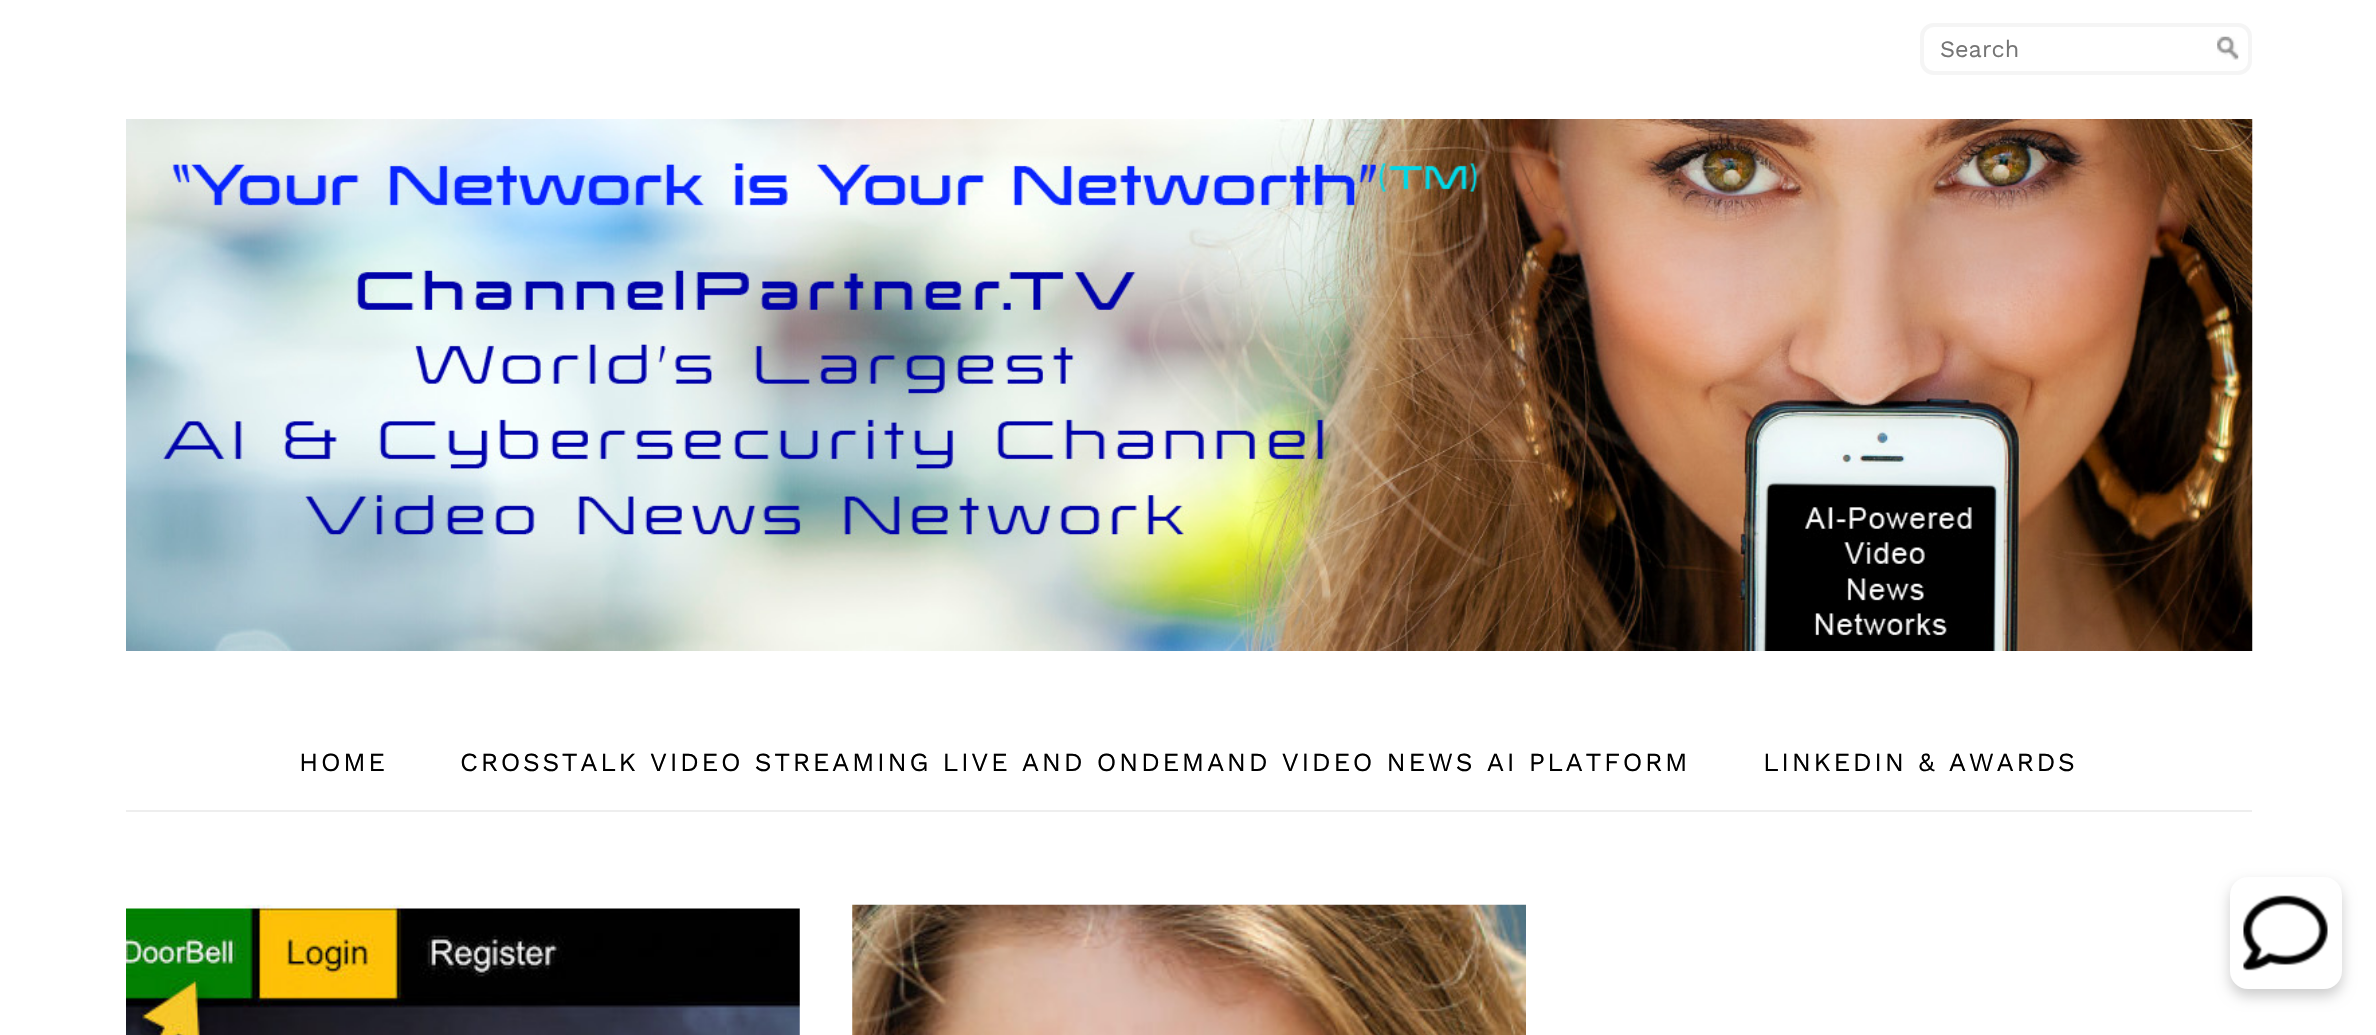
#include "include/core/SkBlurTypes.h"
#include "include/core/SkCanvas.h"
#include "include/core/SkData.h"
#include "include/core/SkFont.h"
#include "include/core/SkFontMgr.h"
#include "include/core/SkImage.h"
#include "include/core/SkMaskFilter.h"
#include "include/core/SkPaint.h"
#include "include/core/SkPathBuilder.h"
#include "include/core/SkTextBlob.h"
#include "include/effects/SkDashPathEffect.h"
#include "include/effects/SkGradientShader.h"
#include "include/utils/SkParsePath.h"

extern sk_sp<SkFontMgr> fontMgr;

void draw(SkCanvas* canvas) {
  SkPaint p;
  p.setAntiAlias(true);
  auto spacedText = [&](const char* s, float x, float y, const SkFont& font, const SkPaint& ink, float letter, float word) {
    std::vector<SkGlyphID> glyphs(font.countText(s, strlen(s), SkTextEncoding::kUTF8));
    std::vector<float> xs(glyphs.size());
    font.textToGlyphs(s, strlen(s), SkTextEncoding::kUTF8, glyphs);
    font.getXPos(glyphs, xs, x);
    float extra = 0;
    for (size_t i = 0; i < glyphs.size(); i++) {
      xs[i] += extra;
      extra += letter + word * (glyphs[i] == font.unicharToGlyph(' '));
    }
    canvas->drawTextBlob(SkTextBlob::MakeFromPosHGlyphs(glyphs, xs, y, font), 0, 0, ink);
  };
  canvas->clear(SK_ColorWHITE);
  p.setStyle(SkPaint::kStroke_Style);
  p.setStrokeWidth(4);
  p.setColor(SkColorSetRGB(245, 245, 245));
  canvas->drawRoundRect(SkRect::MakeLTRB(1922, 25, 2250, 73), 12, 12, p);
  canvas->drawImageRect(SkImages::DeferredFromEncodedData(SkData::MakeFromFileName("images/1.png")), SkRect::MakeLTRB(2217, 36, 2239, 60), SkSamplingOptions());
  canvas->drawImageRect(SkImages::DeferredFromEncodedData(SkData::MakeFromFileName("images/2.png")), SkRect::MakeLTRB(126, 119, 2253, 651), SkSamplingOptions());
  p.setStyle(SkPaint::kFill_Style);
  p.setColor(SkColorSetRGB(238, 238, 238));
  canvas->drawRect(SkRect::MakeLTRB(126, 810, 2252, 812), p);
  canvas->drawImageRect(SkImages::DeferredFromEncodedData(SkData::MakeFromFileName("images/3.png")), SkRect::MakeLTRB(126, 904, 800, 1035), SkSamplingOptions());
  canvas->drawImageRect(SkImages::DeferredFromEncodedData(SkData::MakeFromFileName("images/4.png")), SkRect::MakeLTRB(852, 904, 1526, 1035), SkSamplingOptions());
  p.setColor(SkColorSetARGB(51, 0, 0, 0));
  p.setMaskFilter(SkMaskFilter::MakeBlur(kNormal_SkBlurStyle, 7));
  canvas->drawRoundRect(SkRect::MakeLTRB(2230, 884, 2342, 996), 18, 18, p);
  p.setMaskFilter(nullptr);
  p.setColor(SK_ColorWHITE);
  canvas->drawRoundRect(SkRect::MakeLTRB(2230, 877, 2342, 989), 18, 18, p);
  canvas->drawImageRect(SkImages::DeferredFromEncodedData(SkData::MakeFromFileName("images/5.png")), SkRect::MakeLTRB(2243, 895, 2328, 971), SkSamplingOptions());
  SkFont font1(fontMgr->matchFamilyStyle("Work Sans", SkFontStyle::Normal()), 23.5f);
  font1.setSubpixel(true);
  p.setColor(SkColorSetRGB(117, 117, 117));
  canvas->drawString("Search", 1940, 57, font1, p);
  SkFont font2(fontMgr->matchFamilyStyle("Work Sans", SkFontStyle::Normal()), 26.25f);
  font2.setSubpixel(true);
  p.setColor(SK_ColorBLACK);
  spacedText("HOME", 299, 771, font2, p, 2.62f, 0);
  spacedText("CROSSTALK VIDEO STREAMING LIVE AND ONDEMAND VIDEO NEWS AI PLATFORM", 460, 771, font2, p, 2.62f, 0);
  spacedText("LINKEDIN & AWARDS", 1763, 771, font2, p, 2.62f, 0);
}
